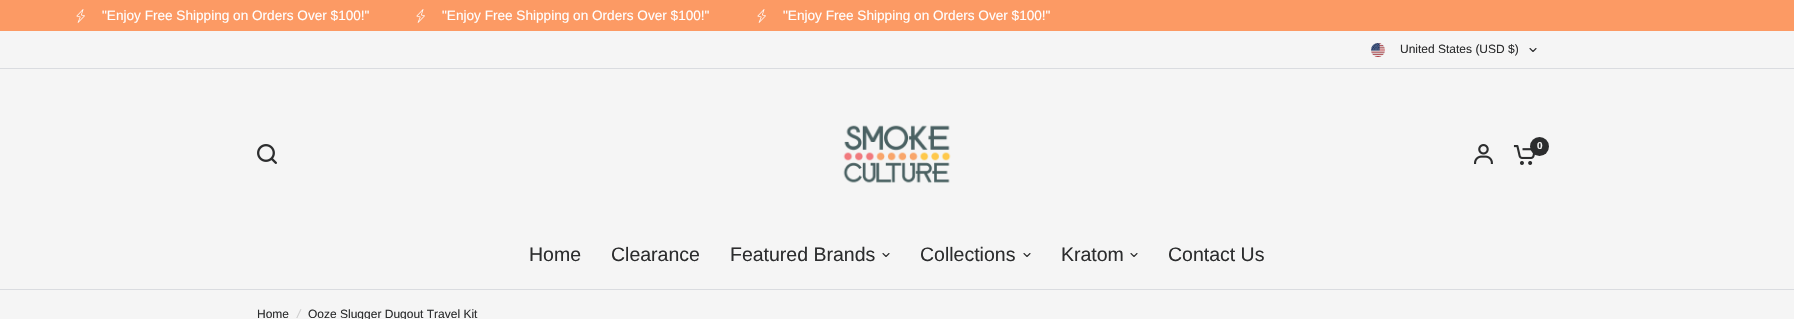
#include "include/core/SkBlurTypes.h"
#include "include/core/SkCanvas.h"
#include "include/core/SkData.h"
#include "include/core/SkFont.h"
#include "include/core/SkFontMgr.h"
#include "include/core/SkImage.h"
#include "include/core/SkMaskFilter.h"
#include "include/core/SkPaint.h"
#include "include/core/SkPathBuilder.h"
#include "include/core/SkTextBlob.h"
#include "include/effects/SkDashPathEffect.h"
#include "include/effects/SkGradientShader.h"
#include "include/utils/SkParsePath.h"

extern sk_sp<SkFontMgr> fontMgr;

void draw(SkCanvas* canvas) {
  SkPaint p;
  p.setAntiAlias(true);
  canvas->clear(SkColorSetRGB(245, 245, 245));
  p.setColor(SkColorSetRGB(252, 154, 100));
  canvas->drawRect(SkRect::MakeLTRB(0, 0, 1794, 31), p);
  canvas->drawImageRect(SkImages::DeferredFromEncodedData(SkData::MakeFromFileName("images/1.png")), SkRect::MakeLTRB(76, 9, 85, 23), SkSamplingOptions());
  canvas->drawImageRect(SkImages::DeferredFromEncodedData(SkData::MakeFromFileName("images/1.png")), SkRect::MakeLTRB(416, 9, 425, 23), SkSamplingOptions());
  canvas->drawImageRect(SkImages::DeferredFromEncodedData(SkData::MakeFromFileName("images/1.png")), SkRect::MakeLTRB(757, 9, 766, 23), SkSamplingOptions());
  p.setColor(SkColorSetRGB(218, 220, 224));
  canvas->drawRect(SkRect::MakeLTRB(0, 68, 1794, 69), p);
  canvas->drawImageRect(SkImages::DeferredFromEncodedData(SkData::MakeFromFileName("images/2.png")), SkRect::MakeLTRB(1371, 43, 1385, 57), SkSamplingOptions());
  p.setStyle(SkPaint::kStroke_Style);
  p.setStrokeWidth(1.1f);
  p.setStrokeCap(SkPaint::kRound_Cap);
  p.setStrokeJoin(SkPaint::kRound_Join);
  p.setColor(SkColorSetRGB(44, 45, 46));
  canvas->drawPath(SkPathBuilder().moveTo(1536, 48.5f).lineTo(1533, 51.5f).lineTo(1530, 48.5f).detach(), p);
  canvas->drawImageRect(SkImages::DeferredFromEncodedData(SkData::MakeFromFileName("images/3.png")), SkRect::MakeLTRB(257, 144, 277, 164), SkSamplingOptions());
  canvas->drawImageRect(SkImages::DeferredFromEncodedData(SkData::MakeFromFileName("images/4.png")), SkRect::MakeLTRB(843, 125, 951, 183), SkSamplingOptions());
  canvas->drawImageRect(SkImages::DeferredFromEncodedData(SkData::MakeFromFileName("images/5.png")), SkRect::MakeLTRB(1474, 144, 1493, 164), SkSamplingOptions());
  canvas->drawImageRect(SkImages::DeferredFromEncodedData(SkData::MakeFromFileName("images/6.png")), SkRect::MakeLTRB(1513, 145, 1535, 165), SkSamplingOptions());
  p.setStyle(SkPaint::kFill_Style);
  canvas->drawCircle(1539.5f, 146.5f, 9.5f, p);
  p.setStyle(SkPaint::kStroke_Style);
  canvas->drawPath(SkPathBuilder().moveTo(889, 253.5f).lineTo(886, 256.5f).lineTo(883, 253.5f).detach(), p);
  canvas->drawPath(SkPathBuilder().moveTo(1030, 253.5f).lineTo(1027, 256.5f).lineTo(1024, 253.5f).detach(), p);
  canvas->drawPath(SkPathBuilder().moveTo(1137, 253.5f).lineTo(1134, 256.5f).lineTo(1131, 253.5f).detach(), p);
  p.setStyle(SkPaint::kFill_Style);
  p.setColor(SkColorSetRGB(218, 220, 224));
  canvas->drawRect(SkRect::MakeLTRB(0, 289, 1794, 290), p);
  SkFont font1(fontMgr->matchFamilyStyle("Liberation Sans", SkFontStyle::Normal()), 13.6f);
  font1.setSubpixel(true);
  p.setColor(SK_ColorWHITE);
  canvas->drawString("\"Enjoy Free Shipping on Orders Over $100!\"", 102, 20, font1, p);
  canvas->drawString("\"Enjoy Free Shipping on Orders Over $100!\"", 442, 20, font1, p);
  canvas->drawString("\"Enjoy Free Shipping on Orders Over $100!\"", 783, 20, font1, p);
  SkFont font2(fontMgr->matchFamilyStyle("Liberation Sans", SkFontStyle::Normal()), 12);
  font2.setSubpixel(true);
  p.setColor(SkColorSetRGB(44, 45, 46));
  canvas->drawString("United States (USD $)", 1400, 53, font2, p);
  SkFont font3(fontMgr->matchFamilyStyle("Liberation Sans", SkFontStyle::Bold()), 10);
  font3.setSubpixel(true);
  p.setColor(SkColorSetRGB(245, 245, 245));
  canvas->drawString("0", 1537, 149, font3, p);
  SkFont font4(fontMgr->matchFamilyStyle("Liberation Sans", SkFontStyle::Normal()), 19.5f);
  font4.setSubpixel(true);
  p.setColor(SkColorSetRGB(44, 45, 46));
  canvas->drawString("Home", 529, 261, font4, p);
  canvas->drawString("Clearance", 611, 261, font4, p);
  canvas->drawString("Featured Brands", 730, 261, font4, p);
  canvas->drawString("Collections", 920, 261, font4, p);
  canvas->drawString("Kratom", 1061, 261, font4, p);
  canvas->drawString("Contact Us", 1168, 261, font4, p);
  canvas->drawString("Home", 257, 318, font2, p);
  SkFont font5(fontMgr->matchFamilyStyle("Liberation Sans", SkFontStyle::Italic()), 12);
  font5.setSubpixel(true);
  p.setColor(SkColorSetRGB(205, 205, 205));
  canvas->drawString("/", 297, 318, font5, p);
  p.setColor(SkColorSetRGB(44, 45, 46));
  canvas->drawString("Ooze Slugger Dugout Travel Kit", 308, 318, font2, p);
}
